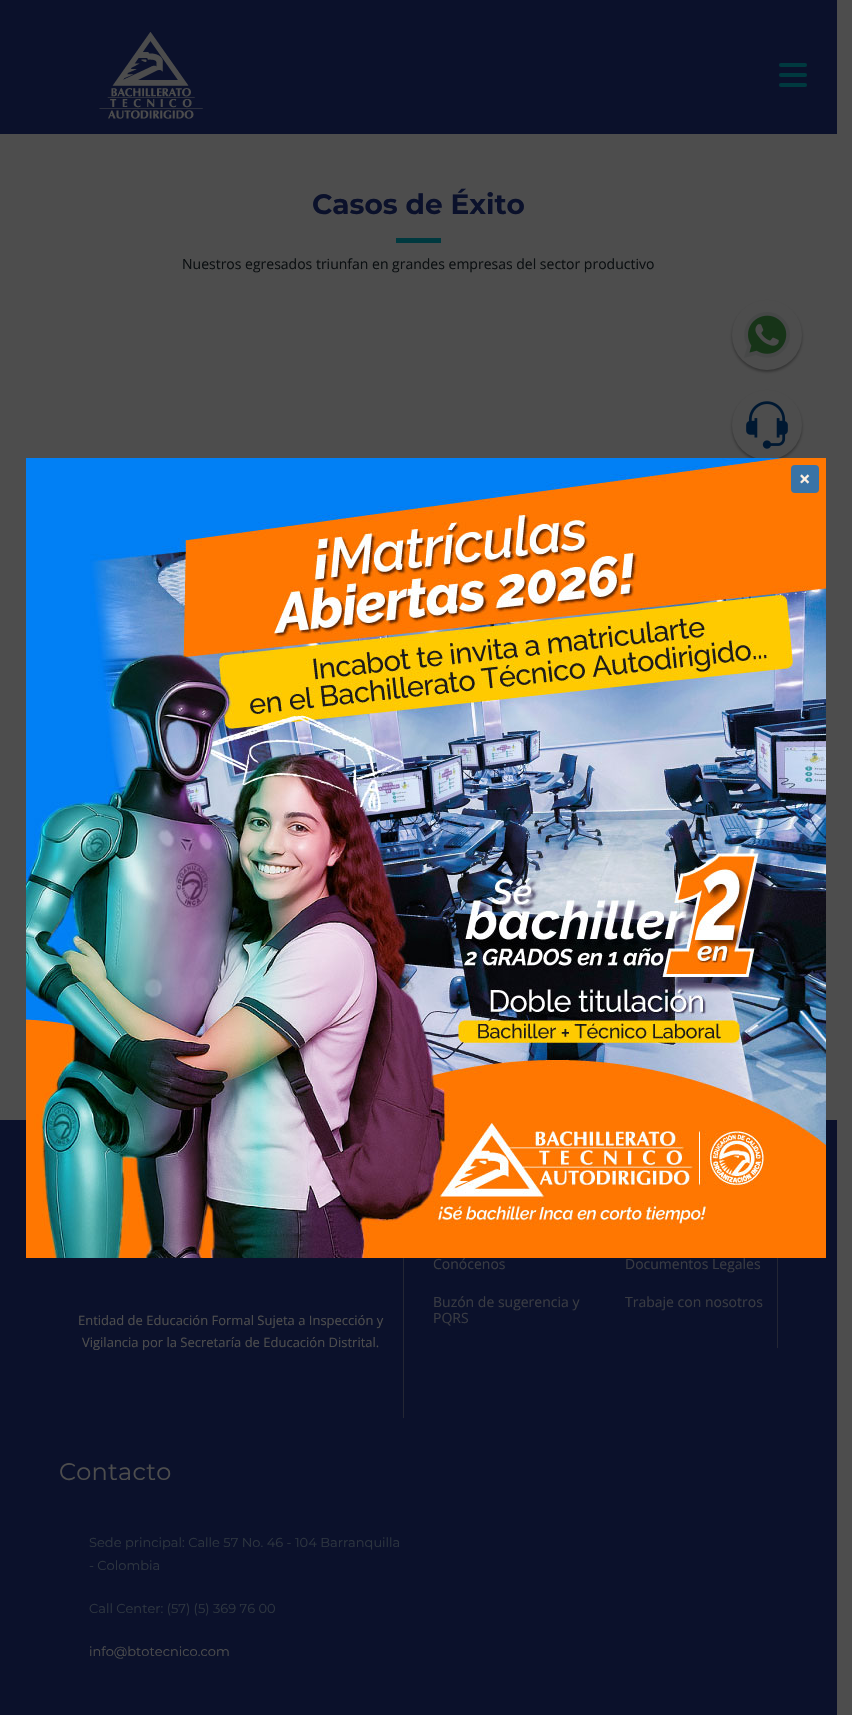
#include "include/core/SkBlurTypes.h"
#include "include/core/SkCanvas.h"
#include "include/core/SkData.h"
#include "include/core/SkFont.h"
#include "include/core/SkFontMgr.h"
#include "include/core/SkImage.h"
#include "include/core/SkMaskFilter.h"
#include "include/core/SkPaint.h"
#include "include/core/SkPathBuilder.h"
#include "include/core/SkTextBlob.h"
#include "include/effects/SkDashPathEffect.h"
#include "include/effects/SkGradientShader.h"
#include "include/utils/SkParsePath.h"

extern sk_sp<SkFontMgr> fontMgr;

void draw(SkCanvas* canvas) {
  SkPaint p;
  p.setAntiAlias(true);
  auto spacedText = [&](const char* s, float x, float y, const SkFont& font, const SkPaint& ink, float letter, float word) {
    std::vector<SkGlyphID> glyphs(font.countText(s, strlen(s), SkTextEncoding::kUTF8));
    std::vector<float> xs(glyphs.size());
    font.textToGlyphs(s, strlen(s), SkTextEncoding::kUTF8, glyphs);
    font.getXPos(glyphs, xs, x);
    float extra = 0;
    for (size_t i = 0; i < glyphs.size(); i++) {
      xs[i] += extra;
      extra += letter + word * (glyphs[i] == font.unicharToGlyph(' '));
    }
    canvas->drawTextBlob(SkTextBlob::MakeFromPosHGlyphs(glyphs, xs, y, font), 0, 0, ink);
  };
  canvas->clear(SkColorSetRGB(77, 77, 77));
  p.setColor(SkColorSetRGB(11, 17, 43));
  canvas->drawRect(SkRect::MakeLTRB(0, 0, 837, 134), p);
  canvas->drawImageRect(SkImages::DeferredFromEncodedData(SkData::MakeFromFileName("images/1.png")), SkRect::MakeLTRB(99, 32, 203, 119), SkSamplingOptions());
  p.setColor(SkColorSetRGB(0, 57, 63));
  canvas->drawRoundRect(SkRect::MakeLTRB(779, 63, 807, 67), 2, 2, p);
  canvas->drawRoundRect(SkRect::MakeLTRB(779, 73, 807, 77), 2, 2, p);
  canvas->drawRoundRect(SkRect::MakeLTRB(779, 83, 807, 87), 2, 2, p);
  canvas->drawRect(SkRect::MakeLTRB(396, 238, 441, 243), p);
  p.setColor(SkColorSetRGB(11, 17, 43));
  canvas->drawRect(SkRect::MakeLTRB(0, 1120, 837, 1715), p);
  p.setColor(SkColorSetRGB(36, 39, 52));
  canvas->drawRect(SkRect::MakeLTRB(777, 1258, 778, 1348), p);
  canvas->drawRect(SkRect::MakeLTRB(403, 1258, 404, 1418), p);
  p.setColor(SkColorSetRGB(50, 50, 50));
  p.setMaskFilter(SkMaskFilter::MakeBlur(kNormal_SkBlurStyle, 1.5f));
  canvas->drawRoundRect(SkRect::MakeLTRB(732, 302, 802, 372), 35, 35, p);
  p.setMaskFilter(nullptr);
  p.setColor(SkColorSetRGB(77, 77, 77));
  canvas->drawCircle(767, 335, 35, p);
  canvas->drawImageRect(SkImages::DeferredFromEncodedData(SkData::MakeFromFileName("images/2.png")), SkRect::MakeLTRB(744, 312, 790, 358), SkSamplingOptions());
  p.setColor(SkColorSetRGB(50, 50, 50));
  p.setMaskFilter(SkMaskFilter::MakeBlur(kNormal_SkBlurStyle, 1.5f));
  canvas->drawRoundRect(SkRect::MakeLTRB(732, 392, 802, 462), 35, 35, p);
  p.setMaskFilter(nullptr);
  p.setColor(SkColorSetRGB(77, 77, 77));
  canvas->drawCircle(767, 425, 35, p);
  canvas->drawImageRect(SkImages::DeferredFromEncodedData(SkData::MakeFromFileName("images/3.png")), SkRect::MakeLTRB(746, 401, 788, 449), SkSamplingOptions());
  canvas->drawImageRect(SkImages::DeferredFromEncodedData(SkData::MakeFromFileName("images/4.png")), SkRect::MakeLTRB(26, 458, 826, 1258), SkSamplingOptions());
  p.setColor(SkColorSetRGB(58, 115, 166));
  canvas->drawRoundRect(SkRect::MakeLTRB(791, 465, 819, 493), 4, 4, p);
  SkFont font1(fontMgr->matchFamilyStyle("Montserrat", SkFontStyle::Bold()), 28);
  font1.setSubpixel(true);
  p.setColor(SkColorSetRGB(11, 17, 43));
  canvas->drawString("Casos de Éxito", 312, 214, font1, p);
  SkFont font2(fontMgr->matchFamilyStyle("Open Sans", SkFontStyle::Normal()), 14);
  font2.setSubpixel(true);
  p.setColor(SkColorSetRGB(11, 15, 17));
  canvas->drawString("Nuestros egresados triunfan en grandes empresas del sector productivo", 182, 269, font2, p);
  p.setColor(SkColorSetRGB(57, 59, 66));
  canvas->drawString("Conócenos", 433, 1269, font2, p);
  canvas->drawString("Documentos Legales", 625, 1269, font2, p);
  canvas->drawString("Buzón de sugerencia y", 433, 1307, font2, p);
  canvas->drawString("PQRS", 433, 1323, font2, p);
  canvas->drawString("Trabaje con nosotros", 625, 1307, font2, p);
  SkFont font3(fontMgr->matchFamilyStyle("Open Sans", SkFontStyle::Normal()), 13);
  font3.setSubpixel(true);
  p.setColor(SkColorSetRGB(77, 77, 77));
  canvas->drawString("Entidad de Educación Formal Sujeta a Inspección y", 78, 1325, font3, p);
  canvas->drawString("Vigilancia por la Secretaría de Educación Distrital.", 82, 1347, font3, p);
  SkFont font4(fontMgr->matchFamilyStyle("Montserrat", SkFontStyle::Normal()), 24);
  font4.setSubpixel(true);
  spacedText("Contacto", 59, 1480, font4, p, 0.25f, 0);
  SkFont font5(fontMgr->matchFamilyStyle("Montserrat", SkFontStyle::Normal()), 13);
  font5.setSubpixel(true);
  p.setColor(SkColorSetRGB(45, 53, 63));
  canvas->drawString("Sede principal: Calle 57 No. 46 - 104 Barranquilla", 89, 1547, font5, p);
  canvas->drawString("- Colombia", 89, 1570, font5, p);
  canvas->drawString("Call Center: (57) (5) 369 76 00", 89, 1613, font5, p);
  p.setColor(SkColorSetRGB(77, 77, 77));
  canvas->drawString("info@btotecnico.com", 89, 1656, font5, p);
  SkFont font6(fontMgr->matchFamilyStyle("Open Sans", SkFontStyle::Bold()), 20);
  font6.setSubpixel(true);
  p.setColor(SkColorSetRGB(255, 238, 223));
  canvas->drawString("×", 799, 486, font6, p);
}
